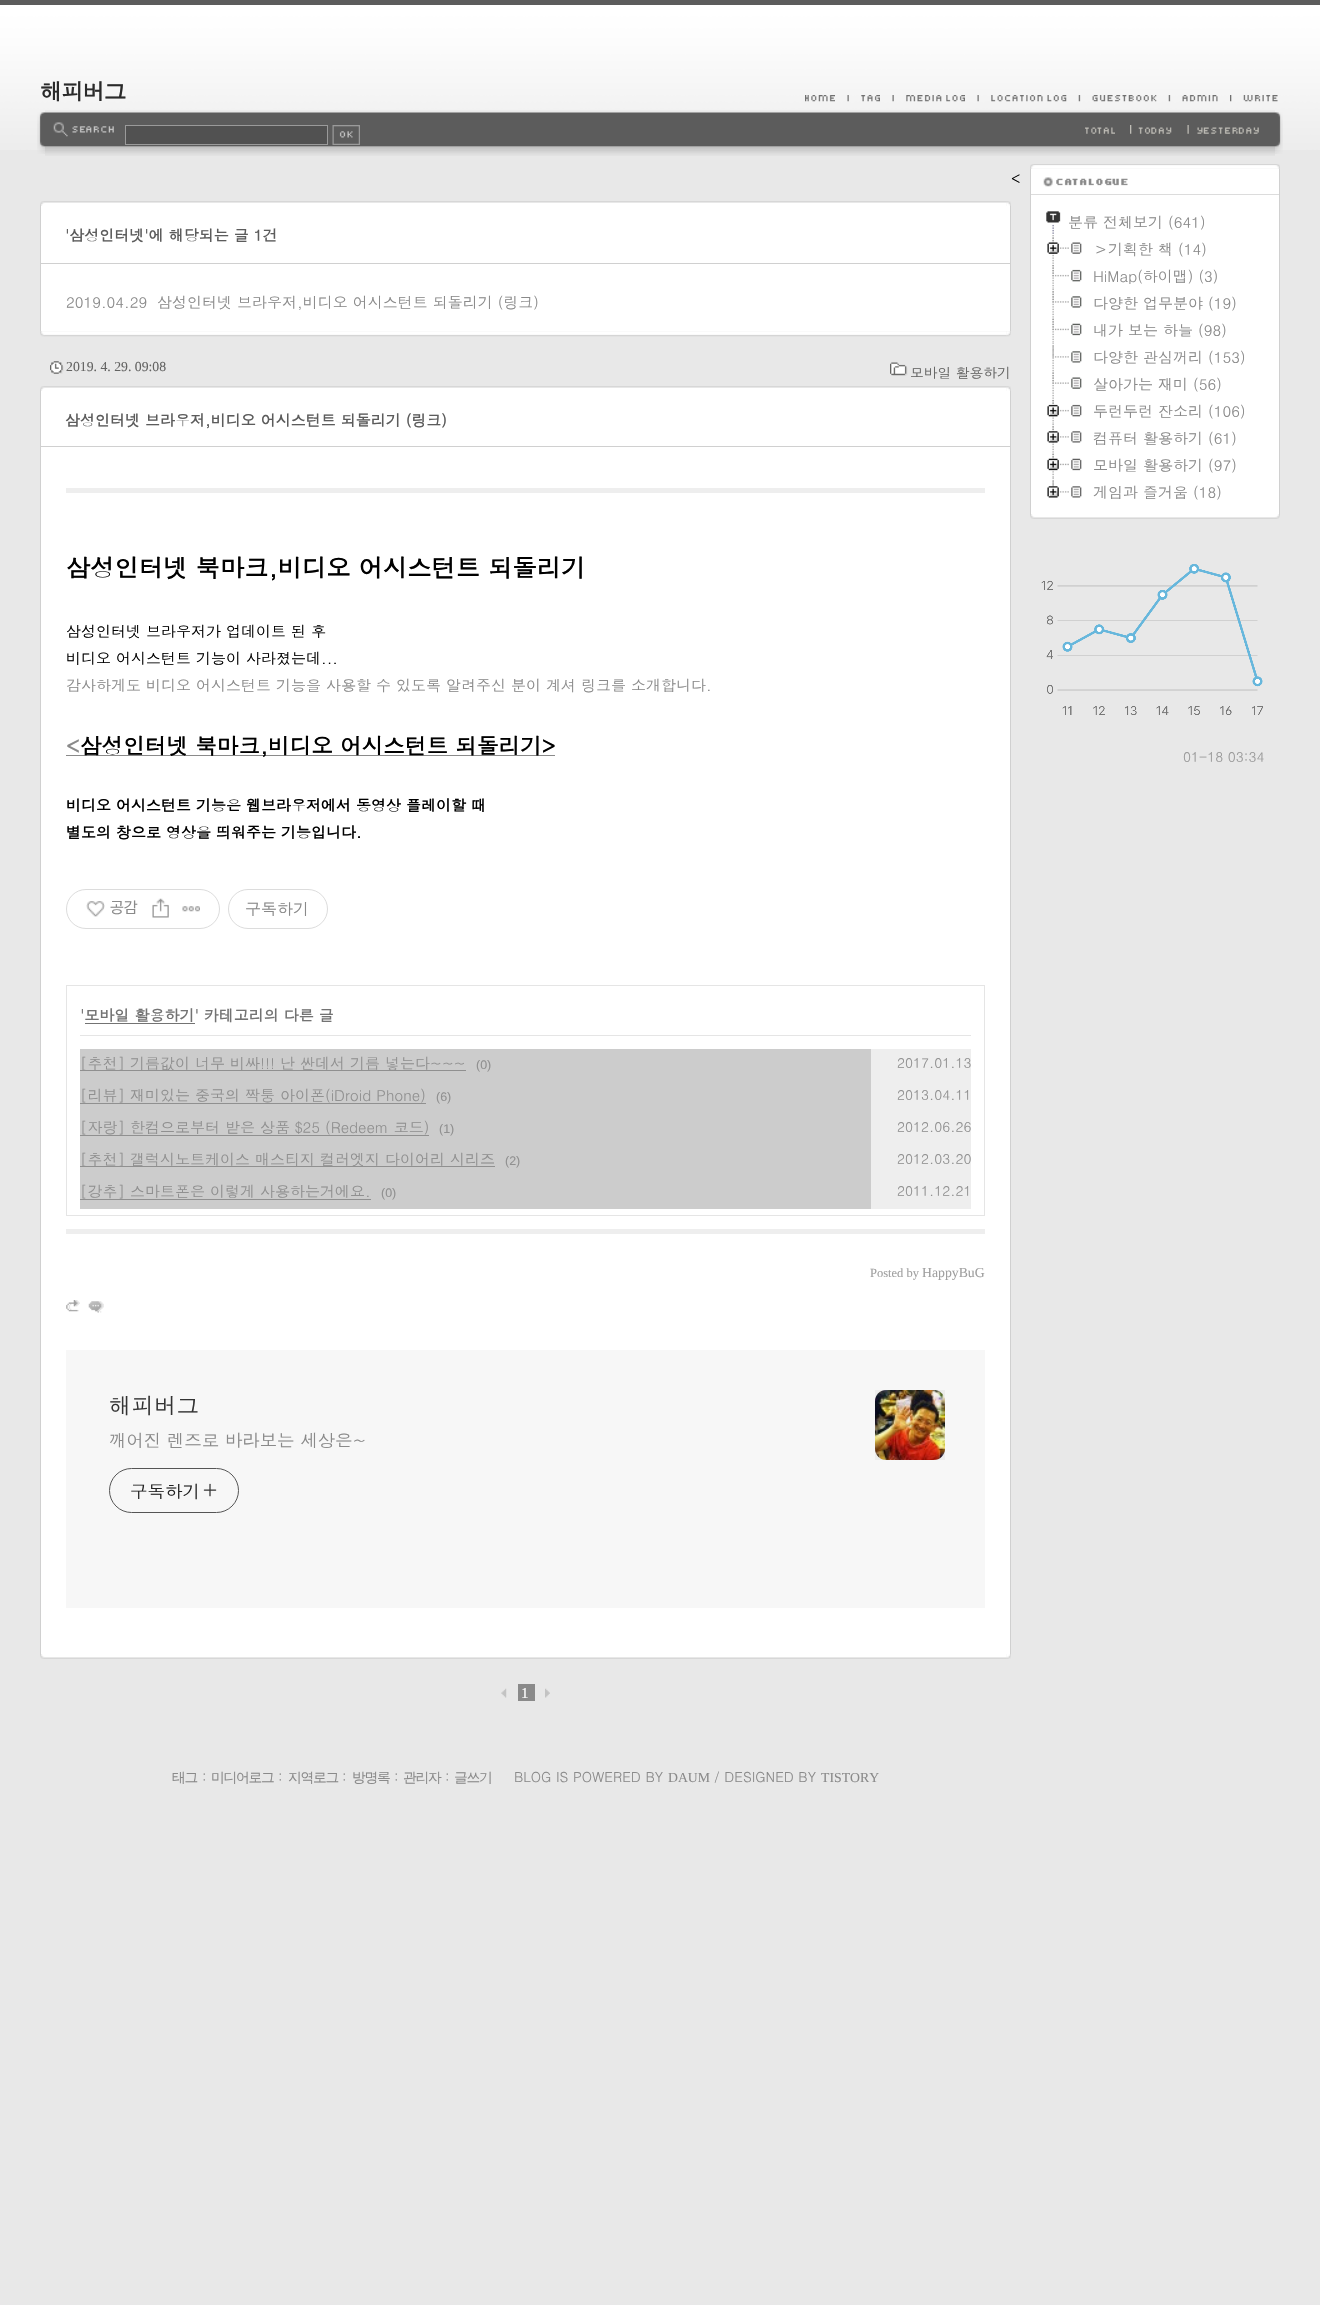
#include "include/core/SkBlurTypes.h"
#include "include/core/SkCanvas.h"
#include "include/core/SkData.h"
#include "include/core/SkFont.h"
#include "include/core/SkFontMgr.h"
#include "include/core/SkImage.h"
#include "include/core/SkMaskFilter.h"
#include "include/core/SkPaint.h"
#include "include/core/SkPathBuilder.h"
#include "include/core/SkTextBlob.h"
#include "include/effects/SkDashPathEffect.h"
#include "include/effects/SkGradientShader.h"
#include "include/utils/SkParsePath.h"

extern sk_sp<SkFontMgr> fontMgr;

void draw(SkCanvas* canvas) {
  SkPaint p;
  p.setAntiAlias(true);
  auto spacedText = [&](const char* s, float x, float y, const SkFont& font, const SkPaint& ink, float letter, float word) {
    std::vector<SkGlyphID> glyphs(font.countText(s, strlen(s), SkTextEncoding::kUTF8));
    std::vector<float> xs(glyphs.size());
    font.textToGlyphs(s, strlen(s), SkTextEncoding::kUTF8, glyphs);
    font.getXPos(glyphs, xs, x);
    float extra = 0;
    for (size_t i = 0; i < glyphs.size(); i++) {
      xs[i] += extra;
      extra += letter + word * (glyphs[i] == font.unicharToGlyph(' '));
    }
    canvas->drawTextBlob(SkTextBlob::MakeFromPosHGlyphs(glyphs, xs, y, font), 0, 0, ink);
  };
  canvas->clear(SkColorSetRGB(232, 232, 232));
  p.setColor(SkColorSetRGB(92, 92, 92));
  canvas->drawRect(SkRect::MakeLTRB(0, 0, 1320, 5), p);
  canvas->drawImageRect(SkImages::DeferredFromEncodedData(SkData::MakeFromFileName("images/1.png")), SkRect::MakeLTRB(0, 5, 1320, 150), SkSamplingOptions());
  canvas->drawImageRect(SkImages::DeferredFromEncodedData(SkData::MakeFromFileName("images/2.png")), SkRect::MakeLTRB(805, 95, 835, 102), SkSamplingOptions());
  canvas->drawImageRect(SkImages::DeferredFromEncodedData(SkData::MakeFromFileName("images/3.png")), SkRect::MakeLTRB(847, 95, 880, 102), SkSamplingOptions());
  canvas->drawImageRect(SkImages::DeferredFromEncodedData(SkData::MakeFromFileName("images/4.png")), SkRect::MakeLTRB(892, 95, 965, 102), SkSamplingOptions());
  canvas->drawImageRect(SkImages::DeferredFromEncodedData(SkData::MakeFromFileName("images/5.png")), SkRect::MakeLTRB(977, 95, 1067, 102), SkSamplingOptions());
  canvas->drawImageRect(SkImages::DeferredFromEncodedData(SkData::MakeFromFileName("images/6.png")), SkRect::MakeLTRB(1078, 95, 1157, 102), SkSamplingOptions());
  canvas->drawImageRect(SkImages::DeferredFromEncodedData(SkData::MakeFromFileName("images/7.png")), SkRect::MakeLTRB(1168, 95, 1218, 102), SkSamplingOptions());
  canvas->drawImageRect(SkImages::DeferredFromEncodedData(SkData::MakeFromFileName("images/8.png")), SkRect::MakeLTRB(1230, 95, 1278, 102), SkSamplingOptions());
  canvas->drawImageRect(SkImages::DeferredFromEncodedData(SkData::MakeFromFileName("images/9.png")), SkRect::MakeLTRB(37, 112, 45, 154), SkSamplingOptions());
  canvas->drawImageRect(SkImages::DeferredFromEncodedData(SkData::MakeFromFileName("images/10.png")), SkRect::MakeLTRB(45, 110, 1275, 156), SkSamplingOptions());
  canvas->drawImageRect(SkImages::DeferredFromEncodedData(SkData::MakeFromFileName("images/11.png")), SkRect::MakeLTRB(53, 122, 114, 137), SkSamplingOptions());
  p.setColor(SkColorSetRGB(81, 81, 81));
  canvas->drawRect(SkRect::MakeLTRB(125.5f, 125.5f, 327.5f, 144.5f), p);
  p.setStyle(SkPaint::kStroke_Style);
  p.setStrokeWidth(1);
  p.setColor(SkColorSetRGB(154, 154, 154));
  canvas->drawRect(SkRect::MakeLTRB(125.5f, 125.5f, 327.5f, 144.5f), p);
  canvas->drawImageRect(SkImages::DeferredFromEncodedData(SkData::MakeFromFileName("images/12.png")), SkRect::MakeLTRB(332, 125, 360, 145), SkSamplingOptions());
  canvas->drawImageRect(SkImages::DeferredFromEncodedData(SkData::MakeFromFileName("images/13.png")), SkRect::MakeLTRB(1085, 127, 1115, 134), SkSamplingOptions());
  canvas->drawImageRect(SkImages::DeferredFromEncodedData(SkData::MakeFromFileName("images/14.png")), SkRect::MakeLTRB(1130, 125, 1172, 134), SkSamplingOptions());
  canvas->drawImageRect(SkImages::DeferredFromEncodedData(SkData::MakeFromFileName("images/15.png")), SkRect::MakeLTRB(1187, 125, 1259, 134), SkSamplingOptions());
  canvas->drawImageRect(SkImages::DeferredFromEncodedData(SkData::MakeFromFileName("images/16.png")), SkRect::MakeLTRB(1275, 112, 1283, 154), SkSamplingOptions());
  canvas->drawImageRect(SkImages::DeferredFromEncodedData(SkData::MakeFromFileName("images/17.png")), SkRect::MakeLTRB(40, 201, 45, 206), SkSamplingOptions());
  canvas->drawImageRect(SkImages::DeferredFromEncodedData(SkData::MakeFromFileName("images/18.png")), SkRect::MakeLTRB(45, 201, 1007, 206), SkSamplingOptions());
  canvas->drawImageRect(SkImages::DeferredFromEncodedData(SkData::MakeFromFileName("images/19.png")), SkRect::MakeLTRB(1006, 201, 1011, 206), SkSamplingOptions());
  p.setStyle(SkPaint::kFill_Style);
  p.setColor(SK_ColorWHITE);
  canvas->drawRect(SkRect::MakeLTRB(41, 206, 1010, 331), p);
  p.setColor(SkColorSetRGB(208, 208, 208));
  canvas->drawRect(SkRect::MakeLTRB(1010, 206, 1011, 331), p);
  canvas->drawRect(SkRect::MakeLTRB(40, 206, 41, 331), p);
  canvas->drawRect(SkRect::MakeLTRB(41, 263, 1010, 264), p);
  canvas->drawImageRect(SkImages::DeferredFromEncodedData(SkData::MakeFromFileName("images/20.png")), SkRect::MakeLTRB(40, 331, 45, 337), SkSamplingOptions());
  canvas->drawImageRect(SkImages::DeferredFromEncodedData(SkData::MakeFromFileName("images/21.png")), SkRect::MakeLTRB(45, 331, 1007, 337), SkSamplingOptions());
  canvas->drawImageRect(SkImages::DeferredFromEncodedData(SkData::MakeFromFileName("images/22.png")), SkRect::MakeLTRB(1006, 331, 1011, 337), SkSamplingOptions());
  canvas->drawImageRect(SkImages::DeferredFromEncodedData(SkData::MakeFromFileName("images/23.png")), SkRect::MakeLTRB(50, 361, 64, 374), SkSamplingOptions());
  canvas->drawImageRect(SkImages::DeferredFromEncodedData(SkData::MakeFromFileName("images/24.png")), SkRect::MakeLTRB(890, 362, 908, 376), SkSamplingOptions());
  canvas->drawImageRect(SkImages::DeferredFromEncodedData(SkData::MakeFromFileName("images/17.png")), SkRect::MakeLTRB(40, 386, 45, 391), SkSamplingOptions());
  canvas->drawImageRect(SkImages::DeferredFromEncodedData(SkData::MakeFromFileName("images/25.png")), SkRect::MakeLTRB(45, 386, 1007, 391), SkSamplingOptions());
  canvas->drawImageRect(SkImages::DeferredFromEncodedData(SkData::MakeFromFileName("images/19.png")), SkRect::MakeLTRB(1006, 386, 1011, 391), SkSamplingOptions());
  p.setColor(SK_ColorWHITE);
  canvas->drawRect(SkRect::MakeLTRB(41, 391, 1010, 1654), p);
  p.setColor(SkColorSetRGB(208, 208, 208));
  canvas->drawRect(SkRect::MakeLTRB(1010, 391, 1011, 1654), p);
  canvas->drawRect(SkRect::MakeLTRB(40, 391, 41, 1654), p);
  canvas->drawRect(SkRect::MakeLTRB(41, 446, 1010, 447), p);
  p.setColor(SkColorSetRGB(238, 238, 238));
  canvas->drawRect(SkRect::MakeLTRB(66, 488, 985, 493), p);
  p.setColor(SkColorSetRGB(138, 138, 138));
  canvas->drawRect(SkRect::MakeLTRB(66, 755, 555, 756), p);
  p.setStyle(SkPaint::kStroke_Style);
  p.setColor(SkColorSetRGB(220, 220, 220));
  canvas->drawRoundRect(SkRect::MakeLTRB(66.5f, 889.5f, 219.5f, 928.5f), 19.5f, 19.5f, p);
  canvas->drawImageRect(SkImages::DeferredFromEncodedData(SkData::MakeFromFileName("images/26.png")), SkRect::MakeLTRB(86, 901, 105, 917), SkSamplingOptions());
  canvas->drawImageRect(SkImages::DeferredFromEncodedData(SkData::MakeFromFileName("images/27.png")), SkRect::MakeLTRB(152, 898, 169, 918), SkSamplingOptions());
  canvas->drawImageRect(SkImages::DeferredFromEncodedData(SkData::MakeFromFileName("images/28.png")), SkRect::MakeLTRB(182, 906, 200, 912), SkSamplingOptions());
  canvas->drawRoundRect(SkRect::MakeLTRB(228.5f, 889.5f, 327.5f, 928.5f), 19.5f, 19.5f, p);
  p.setColor(SkColorSetRGB(229, 229, 229));
  canvas->drawRect(SkRect::MakeLTRB(66.5f, 985.5f, 984.5f, 1215.5f), p);
  p.setStyle(SkPaint::kFill_Style);
  canvas->drawRect(SkRect::MakeLTRB(80, 1035, 971, 1036), p);
  p.setColor(SkColorSetRGB(115, 115, 115));
  canvas->drawRect(SkRect::MakeLTRB(85, 1023, 195, 1024), p);
  p.setColor(SkColorSetRGB(204, 204, 204));
  canvas->drawRect(SkRect::MakeLTRB(80, 1049, 871, 1209), p);
  p.setColor(SkColorSetRGB(144, 144, 144));
  canvas->drawRect(SkRect::MakeLTRB(80, 1070, 466, 1071), p);
  p.setColor(SkColorSetRGB(238, 238, 238));
  canvas->drawRect(SkRect::MakeLTRB(871, 1049, 971, 1209), p);
  p.setColor(SkColorSetRGB(144, 144, 144));
  canvas->drawRect(SkRect::MakeLTRB(80, 1103, 426, 1104), p);
  canvas->drawRect(SkRect::MakeLTRB(80, 1135, 429, 1136), p);
  canvas->drawRect(SkRect::MakeLTRB(80, 1166, 495, 1167), p);
  canvas->drawRect(SkRect::MakeLTRB(80, 1199, 371, 1200), p);
  p.setColor(SkColorSetRGB(238, 238, 238));
  canvas->drawRect(SkRect::MakeLTRB(66, 1229, 985, 1234), p);
  canvas->drawImageRect(SkImages::DeferredFromEncodedData(SkData::MakeFromFileName("images/29.png")), SkRect::MakeLTRB(66, 1300, 80, 1312), SkSamplingOptions());
  canvas->drawImageRect(SkImages::DeferredFromEncodedData(SkData::MakeFromFileName("images/30.png")), SkRect::MakeLTRB(88, 1301, 104, 1313), SkSamplingOptions());
  p.setColor(SkColorSetRGB(247, 247, 247));
  canvas->drawRect(SkRect::MakeLTRB(66, 1350, 985, 1608), p);
  p.setStyle(SkPaint::kStroke_Style);
  p.setColor(SkColorSetRGB(85, 85, 85));
  canvas->drawRoundRect(SkRect::MakeLTRB(109.5f, 1468.5f, 238.5f, 1512.5f), 22, 22, p);
  canvas->drawImageRect(SkImages::DeferredFromEncodedData(SkData::MakeFromFileName("images/31.png")), SkRect::MakeLTRB(203, 1483, 217, 1497), SkSamplingOptions());
  canvas->drawImageRect(SkImages::DeferredFromEncodedData(SkData::MakeFromFileName("images/32.png")), SkRect::MakeLTRB(875, 1390, 945, 1460), SkSamplingOptions());
  p.setStyle(SkPaint::kFill_Style);
  p.setColor(SkColorSetARGB(10, 0, 0, 0));
  canvas->drawRect(SkRect::MakeLTRB(875, 1390, 945, 1460), p);
  canvas->drawImageRect(SkImages::DeferredFromEncodedData(SkData::MakeFromFileName("images/33.png")), SkRect::MakeLTRB(40, 1654, 45, 1659), SkSamplingOptions());
  canvas->drawImageRect(SkImages::DeferredFromEncodedData(SkData::MakeFromFileName("images/34.png")), SkRect::MakeLTRB(45, 1654, 1007, 1659), SkSamplingOptions());
  canvas->drawImageRect(SkImages::DeferredFromEncodedData(SkData::MakeFromFileName("images/35.png")), SkRect::MakeLTRB(1006, 1654, 1011, 1659), SkSamplingOptions());
  canvas->drawImageRect(SkImages::DeferredFromEncodedData(SkData::MakeFromFileName("images/36.png")), SkRect::MakeLTRB(501, 1688, 507, 1698), SkSamplingOptions());
  p.setColor(SkColorSetRGB(138, 138, 138));
  canvas->drawRect(SkRect::MakeLTRB(518, 1684, 535, 1701), p);
  canvas->drawImageRect(SkImages::DeferredFromEncodedData(SkData::MakeFromFileName("images/37.png")), SkRect::MakeLTRB(545, 1688, 550, 1698), SkSamplingOptions());
  canvas->drawImageRect(SkImages::DeferredFromEncodedData(SkData::MakeFromFileName("images/38.png")), SkRect::MakeLTRB(1030, 164, 1035, 169), SkSamplingOptions());
  canvas->drawImageRect(SkImages::DeferredFromEncodedData(SkData::MakeFromFileName("images/39.png")), SkRect::MakeLTRB(1035, 164, 1275, 169), SkSamplingOptions());
  canvas->drawImageRect(SkImages::DeferredFromEncodedData(SkData::MakeFromFileName("images/40.png")), SkRect::MakeLTRB(1275, 164, 1280, 169), SkSamplingOptions());
  p.setColor(SK_ColorWHITE);
  canvas->drawRect(SkRect::MakeLTRB(1031, 169, 1279, 514), p);
  p.setColor(SkColorSetRGB(208, 208, 208));
  canvas->drawRect(SkRect::MakeLTRB(1279, 169, 1280, 514), p);
  canvas->drawRect(SkRect::MakeLTRB(1030, 169, 1031, 514), p);
  canvas->drawImageRect(SkImages::DeferredFromEncodedData(SkData::MakeFromFileName("images/41.png")), SkRect::MakeLTRB(1043, 177, 1128, 187), SkSamplingOptions());
  p.setColor(SkColorSetRGB(220, 220, 220));
  canvas->drawRect(SkRect::MakeLTRB(1031, 194, 1279, 195), p);
  canvas->drawImageRect(SkImages::DeferredFromEncodedData(SkData::MakeFromFileName("images/42.png")), SkRect::MakeLTRB(1046, 211, 1061, 234), SkSamplingOptions());
  canvas->drawImageRect(SkImages::DeferredFromEncodedData(SkData::MakeFromFileName("images/43.png")), SkRect::MakeLTRB(1052, 235, 1054, 263), SkSamplingOptions());
  canvas->drawImageRect(SkImages::DeferredFromEncodedData(SkData::MakeFromFileName("images/44.png")), SkRect::MakeLTRB(1047, 237, 1082, 254), SkSamplingOptions());
  canvas->drawImageRect(SkImages::DeferredFromEncodedData(SkData::MakeFromFileName("images/45.png")), SkRect::MakeLTRB(1052, 262, 1054, 289), SkSamplingOptions());
  canvas->drawImageRect(SkImages::DeferredFromEncodedData(SkData::MakeFromFileName("images/46.png")), SkRect::MakeLTRB(1052, 265, 1082, 282), SkSamplingOptions());
  canvas->drawImageRect(SkImages::DeferredFromEncodedData(SkData::MakeFromFileName("images/47.png")), SkRect::MakeLTRB(1052, 289, 1054, 317), SkSamplingOptions());
  canvas->drawImageRect(SkImages::DeferredFromEncodedData(SkData::MakeFromFileName("images/48.png")), SkRect::MakeLTRB(1052, 291, 1082, 308), SkSamplingOptions());
  canvas->drawImageRect(SkImages::DeferredFromEncodedData(SkData::MakeFromFileName("images/49.png")), SkRect::MakeLTRB(1052, 316, 1054, 343), SkSamplingOptions());
  canvas->drawImageRect(SkImages::DeferredFromEncodedData(SkData::MakeFromFileName("images/50.png")), SkRect::MakeLTRB(1052, 318, 1082, 336), SkSamplingOptions());
  canvas->drawImageRect(SkImages::DeferredFromEncodedData(SkData::MakeFromFileName("images/51.png")), SkRect::MakeLTRB(1052, 342, 1054, 370), SkSamplingOptions());
  canvas->drawImageRect(SkImages::DeferredFromEncodedData(SkData::MakeFromFileName("images/52.png")), SkRect::MakeLTRB(1052, 346, 1082, 363), SkSamplingOptions());
  canvas->drawImageRect(SkImages::DeferredFromEncodedData(SkData::MakeFromFileName("images/43.png")), SkRect::MakeLTRB(1052, 370, 1054, 398), SkSamplingOptions());
  canvas->drawImageRect(SkImages::DeferredFromEncodedData(SkData::MakeFromFileName("images/53.png")), SkRect::MakeLTRB(1052, 372, 1082, 389), SkSamplingOptions());
  canvas->drawImageRect(SkImages::DeferredFromEncodedData(SkData::MakeFromFileName("images/45.png")), SkRect::MakeLTRB(1052, 397, 1054, 424), SkSamplingOptions());
  canvas->drawImageRect(SkImages::DeferredFromEncodedData(SkData::MakeFromFileName("images/54.png")), SkRect::MakeLTRB(1047, 400, 1082, 417), SkSamplingOptions());
  canvas->drawImageRect(SkImages::DeferredFromEncodedData(SkData::MakeFromFileName("images/47.png")), SkRect::MakeLTRB(1052, 424, 1054, 452), SkSamplingOptions());
  canvas->drawImageRect(SkImages::DeferredFromEncodedData(SkData::MakeFromFileName("images/55.png")), SkRect::MakeLTRB(1047, 426, 1082, 443), SkSamplingOptions());
  canvas->drawImageRect(SkImages::DeferredFromEncodedData(SkData::MakeFromFileName("images/49.png")), SkRect::MakeLTRB(1052, 451, 1054, 478), SkSamplingOptions());
  canvas->drawImageRect(SkImages::DeferredFromEncodedData(SkData::MakeFromFileName("images/56.png")), SkRect::MakeLTRB(1047, 453, 1082, 471), SkSamplingOptions());
  canvas->drawImageRect(SkImages::DeferredFromEncodedData(SkData::MakeFromFileName("images/57.png")), SkRect::MakeLTRB(1052, 477, 1054, 487), SkSamplingOptions());
  canvas->drawImageRect(SkImages::DeferredFromEncodedData(SkData::MakeFromFileName("images/58.png")), SkRect::MakeLTRB(1047, 481, 1082, 498), SkSamplingOptions());
  canvas->drawImageRect(SkImages::DeferredFromEncodedData(SkData::MakeFromFileName("images/33.png")), SkRect::MakeLTRB(1030, 514, 1035, 519), SkSamplingOptions());
  canvas->drawImageRect(SkImages::DeferredFromEncodedData(SkData::MakeFromFileName("images/59.png")), SkRect::MakeLTRB(1035, 514, 1275, 519), SkSamplingOptions());
  canvas->drawImageRect(SkImages::DeferredFromEncodedData(SkData::MakeFromFileName("images/60.png")), SkRect::MakeLTRB(1275, 514, 1280, 519), SkSamplingOptions());
  canvas->drawImageRect(SkImages::DeferredFromEncodedData(SkData::MakeFromFileName("images/61.png")), SkRect::MakeLTRB(1041, 564, 1263, 715), SkSamplingOptions());
  SkFont font1(fontMgr->matchFamilyStyle("Dotum", SkFontStyle::Bold()), 22.5f);
  font1.setSubpixel(true);
  p.setColor(SkColorSetRGB(42, 42, 42));
  spacedText("해피버그", 40, 100, font1, p, -1.25f, 0);
  SkFont font2(fontMgr->matchFamilyStyle("Dotum", SkFontStyle::Normal()), 15);
  font2.setSubpixel(true);
  p.setColor(SK_ColorBLACK);
  canvas->drawString("<", 1011, 184, font2, p);
  SkFont font3(fontMgr->matchFamilyStyle("Dotum", SkFontStyle::Bold()), 15);
  font3.setSubpixel(true);
  p.setColor(SkColorSetRGB(92, 92, 92));
  canvas->drawString("'삼성인터넷'에 해당되는 글 1건", 65, 241, font3, p);
  p.setColor(SkColorSetRGB(138, 138, 138));
  canvas->drawString("2019.04.29", 66, 308, font2, p);
  canvas->drawString("삼성인터넷 브라우저,비디오 어시스턴트 되돌리기 (링크)", 157, 308, font2, p);
  SkFont font4(fontMgr->matchFamilyStyle("Liberation Serif", SkFontStyle::Normal()), 13.75f);
  font4.setSubpixel(true);
  p.setColor(SkColorSetRGB(99, 99, 98));
  canvas->drawString("2019. 4. 29. 09:08", 66, 371, font4, p);
  SkFont font5(fontMgr->matchFamilyStyle("Dotum", SkFontStyle::Normal()), 13.75f);
  font5.setSubpixel(true);
  canvas->drawString("모바일 활용하기", 910, 378, font5, p);
  p.setColor(SkColorSetRGB(92, 92, 92));
  canvas->drawString("삼성인터넷 브라우저,비디오 어시스턴트 되돌리기 (링크)", 65, 426, font3, p);
  SkFont font6(fontMgr->matchFamilyStyle("Dotum", SkFontStyle::Bold()), 24.3f);
  font6.setSubpixel(true);
  p.setColor(SK_ColorBLACK);
  canvas->drawString("삼성인터넷 북마크,비디오 어시스턴트 되돌리기", 66, 577, font6, p);
  canvas->drawString("삼성인터넷 브라우저가 업데이트 된 후", 66, 637, font2, p);
  canvas->drawString("비디오 어시스턴트 기능이 사라졌는데...", 66, 664, font2, p);
  p.setColor(SkColorSetRGB(138, 138, 138));
  canvas->drawString("감사하게도 비디오 어시스턴트 기능을 사용할 수 있도록 알려주신 분이 계셔 링크를 소개합니다.", 66, 691, font2, p);
  SkFont font7(fontMgr->matchFamilyStyle("Dotum", SkFontStyle::Bold()), 21.6f);
  font7.setSubpixel(true);
  canvas->drawString("<", 66, 754, font7, p);
  p.setColor(SK_ColorBLACK);
  canvas->drawString("삼성인터넷 북마크,비디오 어시스턴트 되돌리기>", 80, 754, font7, p);
  canvas->drawString("비디오 어시스턴트 기능은 웹브라우저에서 동영상 플레이할 때", 66, 811, font3, p);
  canvas->drawString("별도의 창으로 영상을 띄워주는 기능입니다.", 66, 838, font3, p);
  SkFont font8(fontMgr->matchFamilyStyle("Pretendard", SkFontStyle::Normal()), 16);
  font8.setSubpixel(true);
  p.setColor(SkColorSetRGB(138, 138, 138));
  canvas->drawString("공감", 110, 913, font8, p);
  SkFont font9(fontMgr->matchFamilyStyle("Dotum", SkFontStyle::Normal()), 16);
  font9.setSubpixel(true);
  canvas->drawString("구독하기", 245, 915, font9, p);
  p.setColor(SkColorSetRGB(115, 115, 115));
  canvas->drawString("'모바일 활용하기' 카테고리의 다른 글", 80, 1021, font3, p);
  p.setColor(SkColorSetRGB(144, 144, 144));
  canvas->drawString("[추천] 기름값이 너무 비싸!!! 난 싼데서 기름 넣는다~~~", 80, 1069, font2, p);
  SkFont font10(fontMgr->matchFamilyStyle("Liberation Sans", SkFontStyle::Normal()), 12.5f);
  font10.setSubpixel(true);
  canvas->drawString("(0)", 476, 1069, font10, p);
  canvas->drawString("2017.01.13", 897, 1068, font5, p);
  canvas->drawString("[리뷰] 재미있는 중국의 짝퉁 아이폰(iDroid Phone)", 80, 1101, font2, p);
  canvas->drawString("(6)", 436, 1101, font10, p);
  canvas->drawString("2013.04.11", 897, 1100, font5, p);
  canvas->drawString("[자랑] 한컴으로부터 받은 상품 $25 (Redeem 코드)", 80, 1133, font2, p);
  canvas->drawString("(1)", 439, 1133, font10, p);
  canvas->drawString("2012.06.26", 897, 1132, font5, p);
  canvas->drawString("[추천] 갤럭시노트케이스 매스티지 컬러엣지 다이어리 시리즈", 80, 1165, font2, p);
  canvas->drawString("(2)", 505, 1165, font10, p);
  canvas->drawString("2012.03.20", 897, 1164, font5, p);
  canvas->drawString("[강추] 스마트폰은 이렇게 사용하는거에요.", 80, 1197, font2, p);
  canvas->drawString("(0)", 381, 1197, font10, p);
  canvas->drawString("2011.12.21", 897, 1196, font5, p);
  SkFont font11(fontMgr->matchFamilyStyle("Liberation Serif", SkFontStyle::Normal()), 12.5f);
  font11.setSubpixel(true);
  p.setColor(SkColorSetRGB(159, 159, 159));
  canvas->drawString("Posted by", 870, 1277, font11, p);
  canvas->drawString("HappyBuG", 922, 1277, font4, p);
  SkFont font12(fontMgr->matchFamilyStyle("Dotum", SkFontStyle::Normal()), 22.5f);
  font12.setSubpixel(true);
  p.setColor(SkColorSetRGB(51, 51, 51));
  canvas->drawString("해피버그", 109, 1414, font12, p);
  SkFont font13(fontMgr->matchFamilyStyle("Dotum", SkFontStyle::Normal()), 17.5f);
  font13.setSubpixel(true);
  p.setColor(SkColorSetRGB(138, 138, 138));
  spacedText("깨어진 렌즈로 바라보는 세상은~", 109, 1447, font13, p, -0.1f, 0);
  p.setColor(SkColorSetRGB(34, 34, 34));
  canvas->drawString("구독하기", 130, 1498, font13, p);
  SkFont font14(fontMgr->matchFamilyStyle("Liberation Serif", SkFontStyle::Normal()), 15);
  font14.setSubpixel(true);
  p.setColor(SK_ColorWHITE);
  canvas->drawString("1", 521, 1698, font14, p);
  SkFont font15(fontMgr->matchFamilyStyle("WenQuanYi Zen Hei", SkFontStyle(500, SkFontStyle::kNormal_Width, SkFontStyle::kUpright_Slant)), 13.75f);
  font15.setSubpixel(true);
  p.setColor(SkColorSetRGB(138, 138, 138));
  spacedText("태그", 172, 1782, font15, p, -1.25f, 0);
  canvas->drawString(":", 202, 1782, font5, p);
  spacedText("미디어로그", 211, 1782, font15, p, -1.25f, 0);
  canvas->drawString(":", 278, 1782, font5, p);
  spacedText("지역로그", 288, 1782, font15, p, -1.25f, 0);
  canvas->drawString(":", 342, 1782, font5, p);
  spacedText("방명록", 352, 1782, font15, p, -1.25f, 0);
  canvas->drawString(":", 394, 1782, font5, p);
  spacedText("관리자", 403, 1782, font15, p, -1.25f, 0);
  canvas->drawString(":", 445, 1782, font5, p);
  spacedText("글쓰기", 454, 1782, font15, p, -1.25f, 0);
  canvas->drawString("BLOG IS POWERED BY", 514, 1782, font5, p);
  canvas->drawString("DAUM", 668, 1782, font4, p);
  canvas->drawString("/ DESIGNED BY", 714, 1782, font5, p);
  canvas->drawString("TISTORY", 821, 1782, font4, p);
  canvas->drawString("분류 전체보기 (641)", 1068, 228, font2, p);
  canvas->drawString("＞기획한 책 (14)", 1093, 255, font2, p);
  canvas->drawString("HiMap(하이맵) (3)", 1093, 282, font2, p);
  canvas->drawString("다양한 업무분야 (19)", 1093, 309, font2, p);
  canvas->drawString("내가 보는 하늘 (98)", 1093, 336, font2, p);
  canvas->drawString("다양한 관심꺼리 (153)", 1093, 363, font2, p);
  canvas->drawString("살아가는 재미 (56)", 1093, 390, font2, p);
  canvas->drawString("두런두런 잔소리 (106)", 1093, 417, font2, p);
  canvas->drawString("컴퓨터 활용하기 (61)", 1093, 444, font2, p);
  canvas->drawString("모바일 활용하기 (97)", 1093, 471, font2, p);
  canvas->drawString("게임과 즐거움 (18)", 1093, 498, font2, p);
  p.setColor(SkColorSetRGB(153, 153, 153));
  canvas->drawString("01-18 03:34", 1183, 762, font5, p);
}
